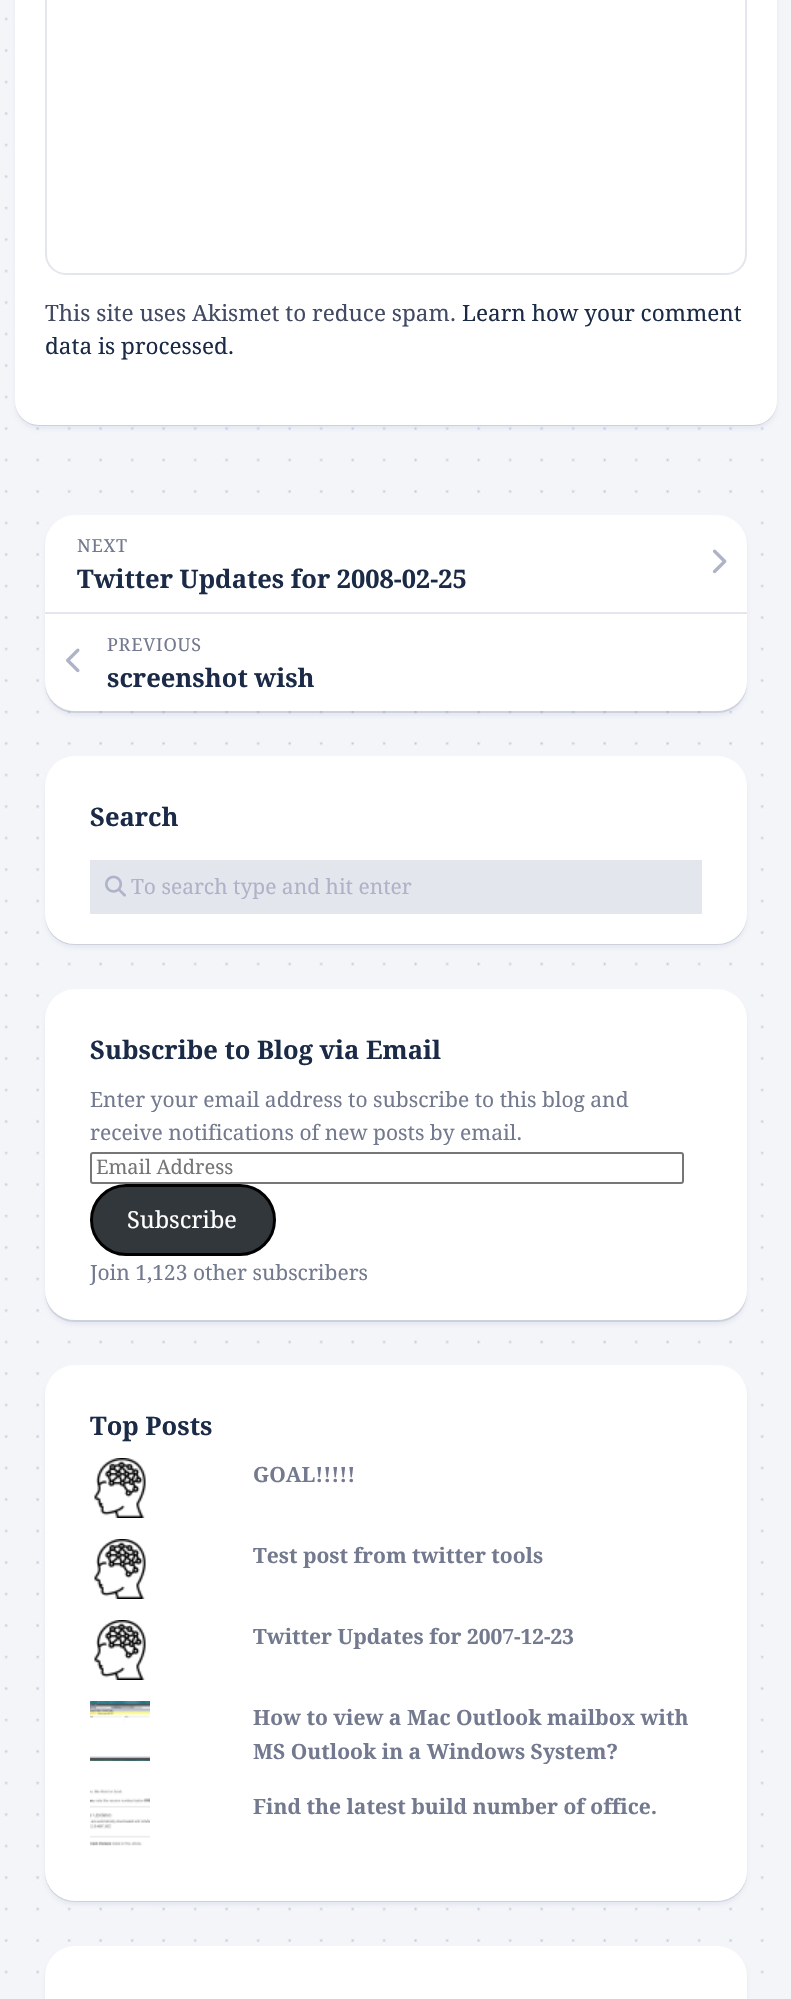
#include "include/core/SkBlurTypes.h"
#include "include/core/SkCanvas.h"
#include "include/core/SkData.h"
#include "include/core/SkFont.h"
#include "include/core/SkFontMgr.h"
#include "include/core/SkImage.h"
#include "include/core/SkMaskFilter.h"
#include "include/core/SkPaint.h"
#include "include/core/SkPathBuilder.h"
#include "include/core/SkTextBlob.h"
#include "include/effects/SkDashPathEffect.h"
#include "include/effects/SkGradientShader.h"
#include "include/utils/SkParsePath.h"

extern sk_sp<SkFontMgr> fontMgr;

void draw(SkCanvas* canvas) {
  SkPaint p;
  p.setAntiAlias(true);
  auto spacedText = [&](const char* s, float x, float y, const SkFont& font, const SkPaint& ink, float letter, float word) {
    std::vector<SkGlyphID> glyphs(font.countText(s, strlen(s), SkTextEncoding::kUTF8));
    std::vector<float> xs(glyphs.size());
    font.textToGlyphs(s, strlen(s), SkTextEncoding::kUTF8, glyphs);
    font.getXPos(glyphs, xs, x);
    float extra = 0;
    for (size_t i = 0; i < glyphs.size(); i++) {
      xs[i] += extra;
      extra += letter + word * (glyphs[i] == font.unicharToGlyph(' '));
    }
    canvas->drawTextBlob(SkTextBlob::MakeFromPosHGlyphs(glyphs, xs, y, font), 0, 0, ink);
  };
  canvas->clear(SkColorSetRGB(244, 245, 248));
  canvas->drawImageRect(SkImages::DeferredFromEncodedData(SkData::MakeFromFileName("images/1.png")), SkRect::MakeLTRB(4, 17, 764, 1974), SkSamplingOptions());
  p.setColor(SkColorSetARGB(77, 193, 203, 230));
  p.setMaskFilter(SkMaskFilter::MakeBlur(kNormal_SkBlurStyle, 2));
  canvas->drawRoundRect(SkRect::MakeLTRB(15, -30, 777, 429), 24, 24, p);
  p.setMaskFilter(nullptr);
  p.setColor(SkColorSetARGB(26, 0, 0, 0));
  canvas->drawPath(SkPathBuilder().moveTo(15, 400).lineTo(15, 402).cubicTo(15, 415, 26, 426, 39, 426).lineTo(753, 426).cubicTo(766, 426, 777, 415, 777, 402).lineTo(777, 400).cubicTo(777, 414, 766, 424, 753, 424).lineTo(39, 424).cubicTo(26, 424, 15, 414, 15, 400).close().detach(), p);
  p.setColor(SK_ColorWHITE);
  canvas->drawRoundRect(SkRect::MakeLTRB(15, -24, 777, 425), 24, 24, p);
  p.setStyle(SkPaint::kStroke_Style);
  p.setStrokeWidth(2);
  p.setColor(SkColorSetRGB(228, 230, 237));
  canvas->drawRoundRect(SkRect::MakeLTRB(46, -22, 746, 274), 20, 20, p);
  p.setStyle(SkPaint::kFill_Style);
  p.setColor(SkColorSetARGB(77, 193, 203, 230));
  p.setMaskFilter(SkMaskFilter::MakeBlur(kNormal_SkBlurStyle, 2));
  canvas->drawRoundRect(SkRect::MakeLTRB(45, 519, 747, 716), 30, 30, p);
  p.setMaskFilter(nullptr);
  p.setColor(SkColorSetARGB(26, 0, 0, 0));
  canvas->drawPath(SkPathBuilder().moveTo(45, 681).lineTo(45, 683).cubicTo(45, 700, 58, 713, 75, 713).lineTo(717, 713).cubicTo(734, 713, 747, 700, 747, 683).lineTo(747, 681).cubicTo(747, 698, 734, 711, 717, 711).lineTo(75, 711).cubicTo(58, 711, 45, 698, 45, 681).close().detach(), p);
  p.setColor(SK_ColorWHITE);
  canvas->drawRoundRect(SkRect::MakeLTRB(45, 515, 747, 711), 30, 30, p);
  p.setColor(SkColorSetRGB(228, 230, 237));
  canvas->drawRect(SkRect::MakeLTRB(45, 612, 747, 614), p);
  canvas->drawImageRect(SkImages::DeferredFromEncodedData(SkData::MakeFromFileName("images/2.png")), SkRect::MakeLTRB(712, 549, 727, 574), SkSamplingOptions());
  canvas->drawImageRect(SkImages::DeferredFromEncodedData(SkData::MakeFromFileName("images/3.png")), SkRect::MakeLTRB(66, 648, 80, 673), SkSamplingOptions());
  p.setColor(SkColorSetARGB(77, 193, 203, 230));
  p.setMaskFilter(SkMaskFilter::MakeBlur(kNormal_SkBlurStyle, 2));
  canvas->drawRoundRect(SkRect::MakeLTRB(45, 761, 747, 948), 30, 30, p);
  p.setMaskFilter(nullptr);
  p.setColor(SkColorSetARGB(26, 0, 0, 0));
  canvas->drawPath(SkPathBuilder().moveTo(45, 914).lineTo(45, 915).cubicTo(45, 932, 58, 945, 75, 945).lineTo(717, 945).cubicTo(734, 945, 747, 932, 747, 915).lineTo(747, 914).cubicTo(747, 930, 734, 944, 717, 944).lineTo(75, 944).cubicTo(58, 944, 45, 930, 45, 914).close().detach(), p);
  p.setColor(SK_ColorWHITE);
  canvas->drawRoundRect(SkRect::MakeLTRB(45, 756, 747, 944), 30, 30, p);
  p.setColor(SkColorSetRGB(228, 230, 237));
  canvas->drawRect(SkRect::MakeLTRB(90, 860, 702, 914), p);
  canvas->drawImageRect(SkImages::DeferredFromEncodedData(SkData::MakeFromFileName("images/4.png")), SkRect::MakeLTRB(105, 875, 126, 897), SkSamplingOptions());
  p.setColor(SkColorSetARGB(77, 193, 203, 230));
  p.setMaskFilter(SkMaskFilter::MakeBlur(kNormal_SkBlurStyle, 2));
  canvas->drawRoundRect(SkRect::MakeLTRB(45, 993, 747, 1325), 30, 30, p);
  p.setMaskFilter(nullptr);
  p.setColor(SkColorSetARGB(26, 0, 0, 0));
  canvas->drawPath(SkPathBuilder().moveTo(45, 1290).lineTo(45, 1292).cubicTo(45, 1309, 58, 1322, 75, 1322).lineTo(717, 1322).cubicTo(734, 1322, 747, 1309, 747, 1292).lineTo(747, 1290).cubicTo(747, 1307, 734, 1320, 717, 1320).lineTo(75, 1320).cubicTo(58, 1320, 45, 1307, 45, 1290).close().detach(), p);
  p.setColor(SK_ColorWHITE);
  canvas->drawRoundRect(SkRect::MakeLTRB(45, 989, 747, 1320), 30, 30, p);
  p.setStyle(SkPaint::kStroke_Style);
  p.setColor(SkColorSetRGB(118, 118, 118));
  canvas->drawRoundRect(SkRect::MakeLTRB(91, 1153, 683, 1183), 2, 2, p);
  p.setStyle(SkPaint::kFill_Style);
  p.setColor(SkColorSetRGB(50, 55, 60));
  canvas->drawRoundRect(SkRect::MakeLTRB(91.5f, 1185.5f, 274.5f, 1254.5f), 34.5f, 34.5f, p);
  p.setStyle(SkPaint::kStroke_Style);
  p.setStrokeWidth(3);
  p.setColor(SK_ColorBLACK);
  canvas->drawRoundRect(SkRect::MakeLTRB(91.5f, 1185.5f, 274.5f, 1254.5f), 34.5f, 34.5f, p);
  p.setStyle(SkPaint::kFill_Style);
  p.setColor(SkColorSetARGB(77, 193, 203, 230));
  p.setMaskFilter(SkMaskFilter::MakeBlur(kNormal_SkBlurStyle, 2));
  canvas->drawRoundRect(SkRect::MakeLTRB(45, 1370, 747, 1905), 30, 30, p);
  p.setMaskFilter(nullptr);
  p.setColor(SkColorSetARGB(26, 0, 0, 0));
  canvas->drawPath(SkPathBuilder().moveTo(45, 1870).lineTo(45, 1872).cubicTo(45, 1889, 58, 1902, 75, 1902).lineTo(717, 1902).cubicTo(734, 1902, 747, 1889, 747, 1872).lineTo(747, 1870).cubicTo(747, 1887, 734, 1900, 717, 1900).lineTo(75, 1900).cubicTo(58, 1900, 45, 1887, 45, 1870).close().detach(), p);
  p.setColor(SK_ColorWHITE);
  canvas->drawRoundRect(SkRect::MakeLTRB(45, 1365, 747, 1901), 30, 30, p);
  canvas->drawImageRect(SkImages::DeferredFromEncodedData(SkData::MakeFromFileName("images/5.png")), SkRect::MakeLTRB(94, 1458, 146, 1518), SkSamplingOptions());
  canvas->drawImageRect(SkImages::DeferredFromEncodedData(SkData::MakeFromFileName("images/5.png")), SkRect::MakeLTRB(94, 1539, 146, 1599), SkSamplingOptions());
  canvas->drawImageRect(SkImages::DeferredFromEncodedData(SkData::MakeFromFileName("images/5.png")), SkRect::MakeLTRB(94, 1620, 146, 1680), SkSamplingOptions());
  canvas->drawImageRect(SkImages::DeferredFromEncodedData(SkData::MakeFromFileName("images/6.png")), SkRect::MakeLTRB(90, 1701, 150, 1761), SkSamplingOptions());
  canvas->drawImageRect(SkImages::DeferredFromEncodedData(SkData::MakeFromFileName("images/7.png")), SkRect::MakeLTRB(90, 1789, 150, 1846), SkSamplingOptions());
  p.setColor(SkColorSetARGB(77, 193, 203, 230));
  p.setMaskFilter(SkMaskFilter::MakeBlur(kNormal_SkBlurStyle, 2));
  canvas->drawRoundRect(SkRect::MakeLTRB(45, 1950, 747, 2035), 30, 30, p);
  p.setMaskFilter(nullptr);
  p.setColor(SK_ColorWHITE);
  canvas->drawRoundRect(SkRect::MakeLTRB(45, 1946, 747, 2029), 30, 30, p);
  SkFont font1(fontMgr->matchFamilyStyle("Droid Serif", SkFontStyle::Normal()), 22.5f);
  font1.setSubpixel(true);
  p.setColor(SkColorSetRGB(67, 75, 100));
  canvas->drawString("This site uses Akismet to reduce spam.", 45, 321, font1, p);
  p.setColor(SkColorSetRGB(27, 43, 71));
  canvas->drawString("Learn how your comment", 462, 321, font1, p);
  canvas->drawString("data is processed.", 45, 354, font1, p);
  SkFont font2(fontMgr->matchFamilyStyle("Droid Serif", SkFontStyle::Normal()), 18);
  font2.setSubpixel(true);
  p.setColor(SkColorSetRGB(115, 121, 142));
  spacedText("NEXT", 77, 552, font2, p, 0.75f, 0);
  canvas->save();
  canvas->clipRect(SkRect::MakeLTRB(77, 563, 687, 597));
  SkFont font3(fontMgr->matchFamilyStyle("Droid Serif", SkFontStyle::Bold()), 25.5f);
  font3.setSubpixel(true);
  p.setColor(SkColorSetRGB(27, 43, 71));
  canvas->drawString("Twitter Updates for 2008-02-25", 77, 588, font3, p);
  canvas->restore();
  p.setColor(SkColorSetRGB(115, 121, 142));
  spacedText("PREVIOUS", 107, 651, font2, p, 0.75f, 0);
  p.setColor(SkColorSetRGB(27, 43, 71));
  canvas->drawString("screenshot wish", 107, 687, font3, p);
  canvas->drawString("Search", 90, 826, font3, p);
  SkFont font4(fontMgr->matchFamilyStyle("Droid Serif", SkFontStyle::Normal()), 21);
  font4.setSubpixel(true);
  p.setColor(SkColorSetRGB(174, 179, 199));
  canvas->drawString("To search type and hit enter", 131, 894, font4, p);
  p.setColor(SkColorSetRGB(27, 43, 71));
  canvas->drawString("Subscribe to Blog via Email", 90, 1059, font3, p);
  p.setColor(SkColorSetRGB(115, 121, 142));
  canvas->drawString("Enter your email address to subscribe to this blog and", 90, 1107, font4, p);
  canvas->drawString("receive notifications of new posts by email.", 90, 1140, font4, p);
  SkFont font5(fontMgr->matchFamilyStyle("Droid Serif", SkFontStyle::Normal()), 20);
  font5.setSubpixel(true);
  p.setColor(SkColorSetRGB(117, 117, 117));
  canvas->drawString("Email Address", 96, 1174, font5, p);
  SkFont font6(fontMgr->matchFamilyStyle("Droid Serif", SkFontStyle::Normal()), 23.5f);
  font6.setSubpixel(true);
  p.setColor(SK_ColorWHITE);
  canvas->drawString("Subscribe", 127, 1228, font6, p);
  p.setColor(SkColorSetRGB(115, 121, 142));
  canvas->drawString("Join 1,123 other subscribers", 90, 1280, font4, p);
  p.setColor(SkColorSetRGB(27, 43, 71));
  canvas->drawString("Top Posts", 90, 1435, font3, p);
  SkFont font7(fontMgr->matchFamilyStyle("Droid Serif", SkFontStyle::Bold()), 21);
  font7.setSubpixel(true);
  p.setColor(SkColorSetRGB(115, 121, 142));
  canvas->drawString("GOAL!!!!!", 253, 1482, font7, p);
  canvas->drawString("Test post from twitter tools", 253, 1563, font7, p);
  canvas->drawString("Twitter Updates for 2007-12-23", 253, 1644, font7, p);
  canvas->drawString("How to view a Mac Outlook mailbox with", 253, 1725, font7, p);
  canvas->drawString("MS Outlook in a Windows System?", 253, 1759, font7, p);
  canvas->drawString("Find the latest build number of office.", 253, 1814, font7, p);
}
